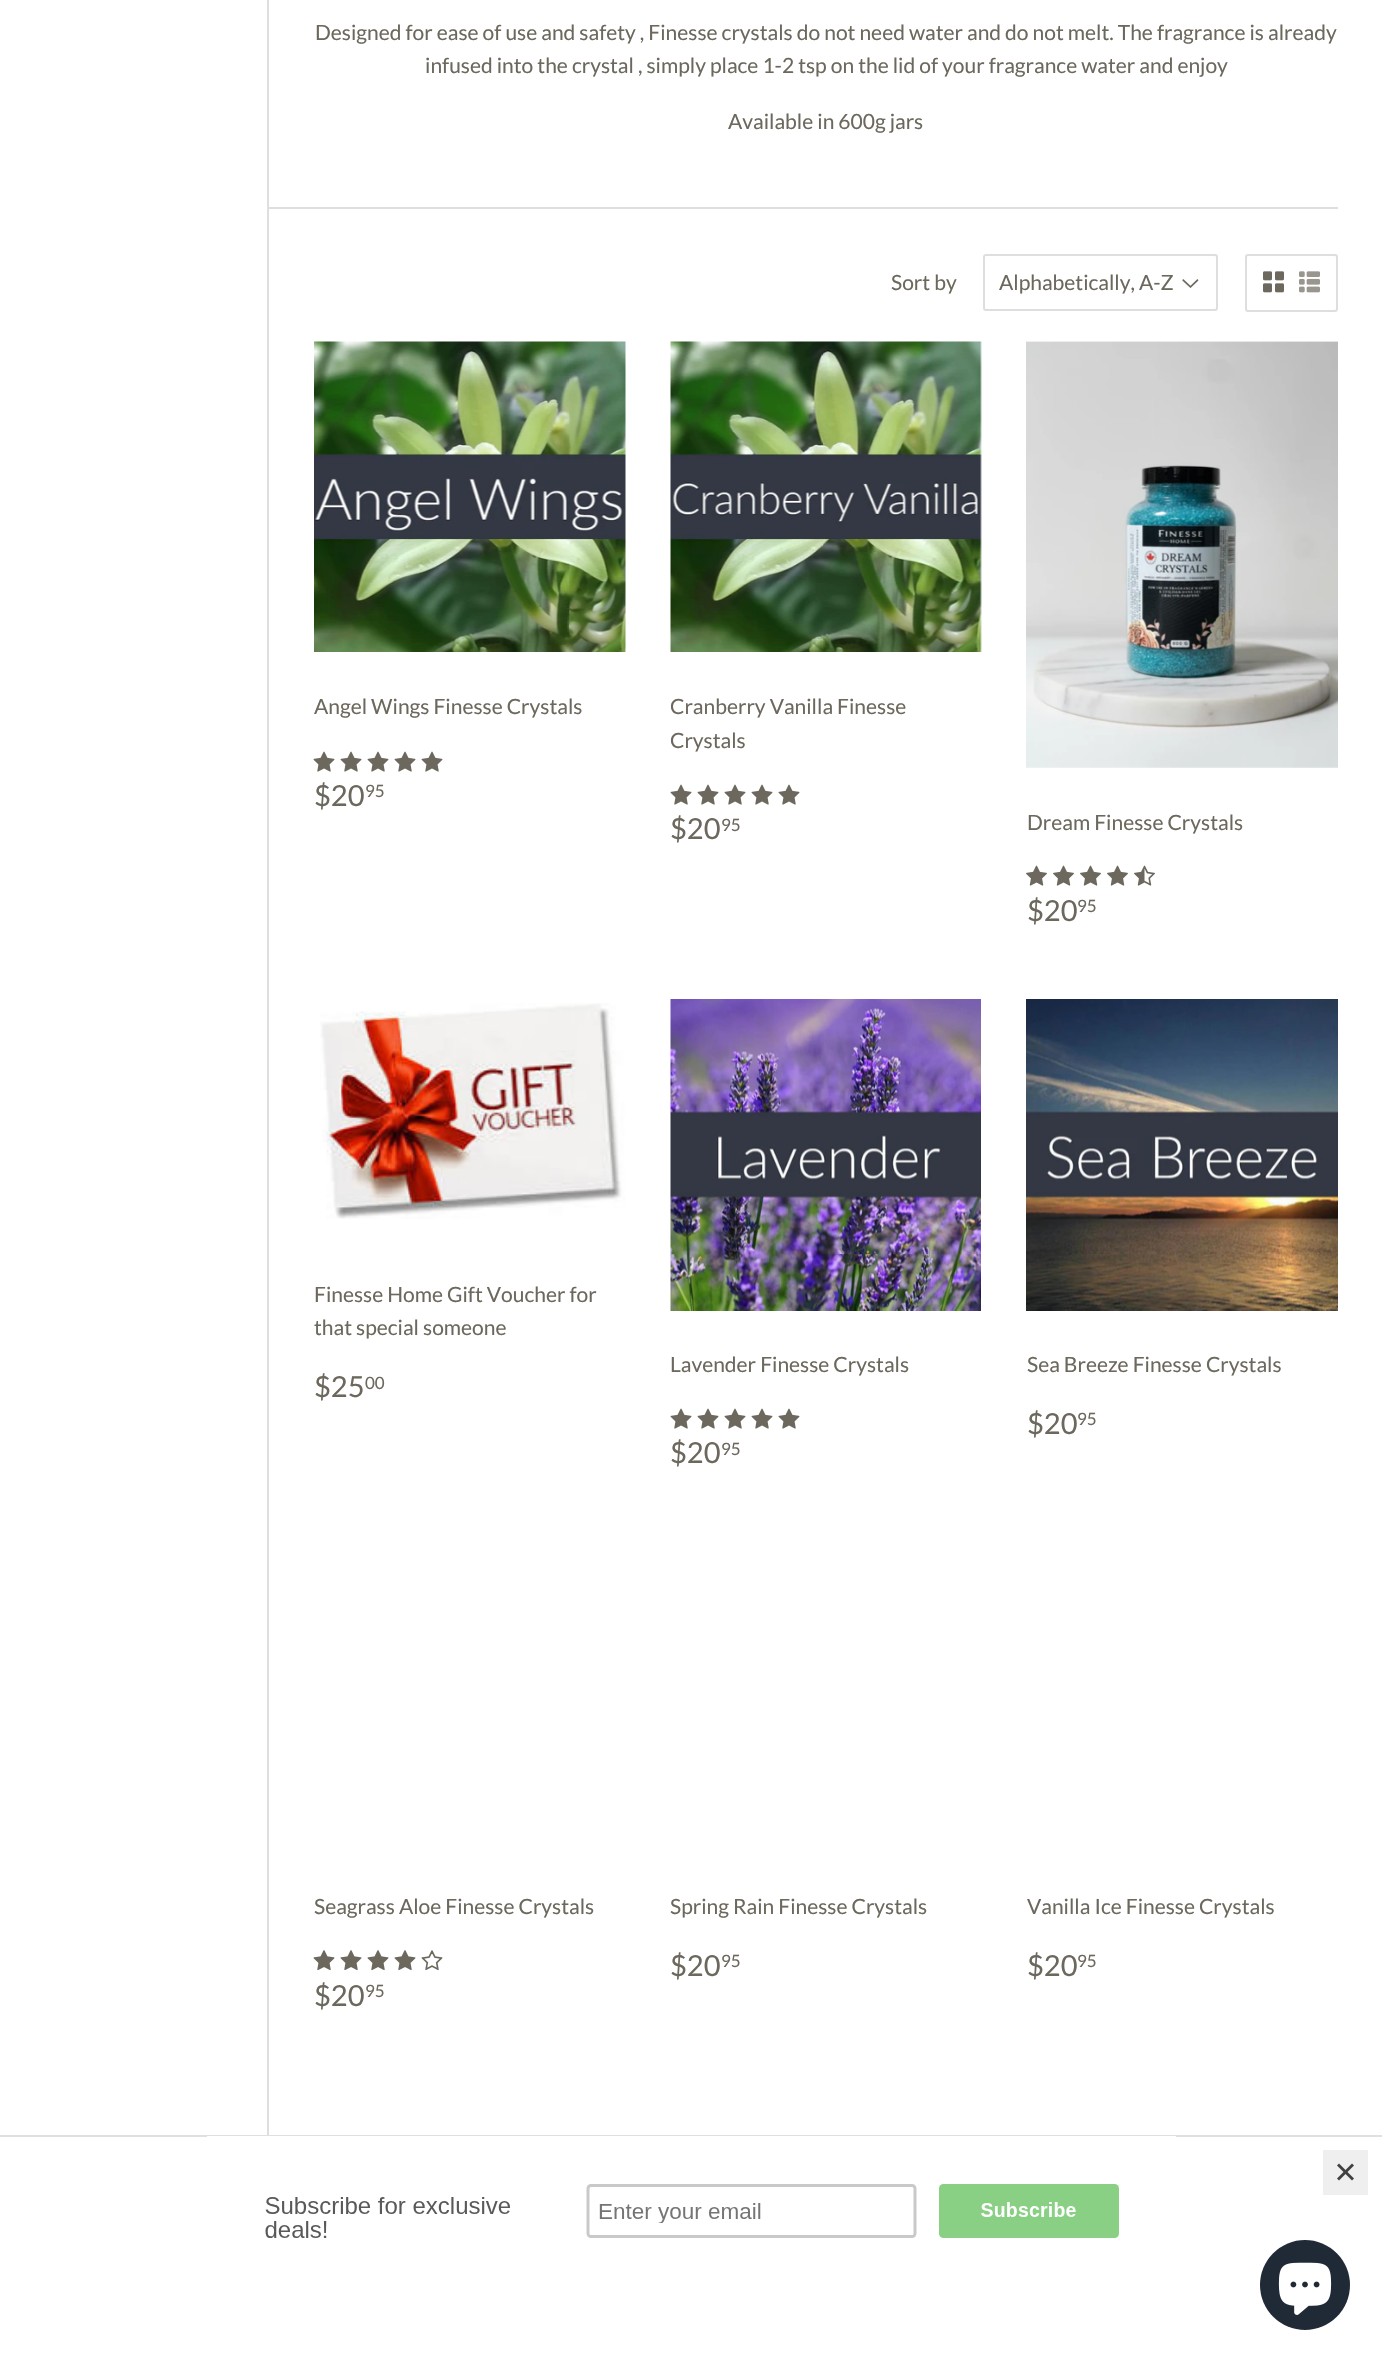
#include "include/core/SkBlurTypes.h"
#include "include/core/SkCanvas.h"
#include "include/core/SkData.h"
#include "include/core/SkFont.h"
#include "include/core/SkFontMgr.h"
#include "include/core/SkImage.h"
#include "include/core/SkMaskFilter.h"
#include "include/core/SkPaint.h"
#include "include/core/SkPathBuilder.h"
#include "include/core/SkTextBlob.h"
#include "include/effects/SkDashPathEffect.h"
#include "include/effects/SkGradientShader.h"
#include "include/utils/SkParsePath.h"

extern sk_sp<SkFontMgr> fontMgr;

void draw(SkCanvas* canvas) {
  SkPaint p;
  p.setAntiAlias(true);
  canvas->clear(SK_ColorWHITE);
  p.setColor(SkColorSetRGB(222, 222, 222));
  canvas->drawRect(SkRect::MakeLTRB(267, 0, 269, 2135), p);
  canvas->drawRect(SkRect::MakeLTRB(269, 207, 1338, 209), p);
  canvas->drawImageRect(SkImages::DeferredFromEncodedData(SkData::MakeFromFileName("images/1.png")), SkRect::MakeLTRB(1182, 279, 1199, 288), SkSamplingOptions());
  p.setStyle(SkPaint::kStroke_Style);
  p.setStrokeWidth(2);
  canvas->drawRoundRect(SkRect::MakeLTRB(984, 255, 1217, 310), 2, 2, p);
  canvas->drawRoundRect(SkRect::MakeLTRB(1246, 255, 1337, 311), 2, 2, p);
  canvas->drawImageRect(SkImages::DeferredFromEncodedData(SkData::MakeFromFileName("images/2.png")), SkRect::MakeLTRB(1263, 271, 1284, 293), SkSamplingOptions());
  canvas->drawImageRect(SkImages::DeferredFromEncodedData(SkData::MakeFromFileName("images/3.png")), SkRect::MakeLTRB(1299, 271, 1320, 293), SkSamplingOptions());
  canvas->drawImageRect(SkImages::DeferredFromEncodedData(SkData::MakeFromFileName("images/4.png")), SkRect::MakeLTRB(314, 341, 626, 652), SkSamplingOptions());
  canvas->drawImageRect(SkImages::DeferredFromEncodedData(SkData::MakeFromFileName("images/5.png")), SkRect::MakeLTRB(313, 751, 335, 772), SkSamplingOptions());
  canvas->drawImageRect(SkImages::DeferredFromEncodedData(SkData::MakeFromFileName("images/5.png")), SkRect::MakeLTRB(340, 751, 362, 772), SkSamplingOptions());
  canvas->drawImageRect(SkImages::DeferredFromEncodedData(SkData::MakeFromFileName("images/5.png")), SkRect::MakeLTRB(367, 751, 389, 772), SkSamplingOptions());
  canvas->drawImageRect(SkImages::DeferredFromEncodedData(SkData::MakeFromFileName("images/5.png")), SkRect::MakeLTRB(394, 751, 416, 772), SkSamplingOptions());
  canvas->drawImageRect(SkImages::DeferredFromEncodedData(SkData::MakeFromFileName("images/5.png")), SkRect::MakeLTRB(421, 751, 443, 772), SkSamplingOptions());
  canvas->drawImageRect(SkImages::DeferredFromEncodedData(SkData::MakeFromFileName("images/6.png")), SkRect::MakeLTRB(670, 341, 982, 652), SkSamplingOptions());
  canvas->drawImageRect(SkImages::DeferredFromEncodedData(SkData::MakeFromFileName("images/5.png")), SkRect::MakeLTRB(670, 784, 692, 805), SkSamplingOptions());
  canvas->drawImageRect(SkImages::DeferredFromEncodedData(SkData::MakeFromFileName("images/5.png")), SkRect::MakeLTRB(697, 784, 719, 805), SkSamplingOptions());
  canvas->drawImageRect(SkImages::DeferredFromEncodedData(SkData::MakeFromFileName("images/5.png")), SkRect::MakeLTRB(724, 784, 746, 805), SkSamplingOptions());
  canvas->drawImageRect(SkImages::DeferredFromEncodedData(SkData::MakeFromFileName("images/5.png")), SkRect::MakeLTRB(751, 784, 773, 805), SkSamplingOptions());
  canvas->drawImageRect(SkImages::DeferredFromEncodedData(SkData::MakeFromFileName("images/5.png")), SkRect::MakeLTRB(778, 784, 800, 805), SkSamplingOptions());
  canvas->drawImageRect(SkImages::DeferredFromEncodedData(SkData::MakeFromFileName("images/7.png")), SkRect::MakeLTRB(1026, 341, 1338, 768), SkSamplingOptions());
  canvas->drawImageRect(SkImages::DeferredFromEncodedData(SkData::MakeFromFileName("images/8.png")), SkRect::MakeLTRB(1026, 865, 1047, 886), SkSamplingOptions());
  canvas->drawImageRect(SkImages::DeferredFromEncodedData(SkData::MakeFromFileName("images/8.png")), SkRect::MakeLTRB(1053, 865, 1074, 886), SkSamplingOptions());
  canvas->drawImageRect(SkImages::DeferredFromEncodedData(SkData::MakeFromFileName("images/8.png")), SkRect::MakeLTRB(1080, 865, 1101, 886), SkSamplingOptions());
  canvas->drawImageRect(SkImages::DeferredFromEncodedData(SkData::MakeFromFileName("images/8.png")), SkRect::MakeLTRB(1107, 865, 1128, 886), SkSamplingOptions());
  canvas->drawImageRect(SkImages::DeferredFromEncodedData(SkData::MakeFromFileName("images/9.png")), SkRect::MakeLTRB(1134, 865, 1155, 886), SkSamplingOptions());
  canvas->drawImageRect(SkImages::DeferredFromEncodedData(SkData::MakeFromFileName("images/10.png")), SkRect::MakeLTRB(320, 1003, 625, 1219), SkSamplingOptions());
  canvas->drawImageRect(SkImages::DeferredFromEncodedData(SkData::MakeFromFileName("images/11.png")), SkRect::MakeLTRB(670, 999, 981, 1311), SkSamplingOptions());
  canvas->drawImageRect(SkImages::DeferredFromEncodedData(SkData::MakeFromFileName("images/5.png")), SkRect::MakeLTRB(670, 1408, 692, 1429), SkSamplingOptions());
  canvas->drawImageRect(SkImages::DeferredFromEncodedData(SkData::MakeFromFileName("images/5.png")), SkRect::MakeLTRB(697, 1408, 719, 1429), SkSamplingOptions());
  canvas->drawImageRect(SkImages::DeferredFromEncodedData(SkData::MakeFromFileName("images/5.png")), SkRect::MakeLTRB(724, 1408, 746, 1429), SkSamplingOptions());
  canvas->drawImageRect(SkImages::DeferredFromEncodedData(SkData::MakeFromFileName("images/5.png")), SkRect::MakeLTRB(751, 1408, 773, 1429), SkSamplingOptions());
  canvas->drawImageRect(SkImages::DeferredFromEncodedData(SkData::MakeFromFileName("images/5.png")), SkRect::MakeLTRB(778, 1408, 800, 1429), SkSamplingOptions());
  canvas->drawImageRect(SkImages::DeferredFromEncodedData(SkData::MakeFromFileName("images/12.png")), SkRect::MakeLTRB(1026, 999, 1338, 1311), SkSamplingOptions());
  canvas->drawImageRect(SkImages::DeferredFromEncodedData(SkData::MakeFromFileName("images/13.png")), SkRect::MakeLTRB(313, 1950, 335, 1971), SkSamplingOptions());
  canvas->drawImageRect(SkImages::DeferredFromEncodedData(SkData::MakeFromFileName("images/13.png")), SkRect::MakeLTRB(340, 1950, 362, 1971), SkSamplingOptions());
  canvas->drawImageRect(SkImages::DeferredFromEncodedData(SkData::MakeFromFileName("images/13.png")), SkRect::MakeLTRB(367, 1950, 389, 1971), SkSamplingOptions());
  canvas->drawImageRect(SkImages::DeferredFromEncodedData(SkData::MakeFromFileName("images/13.png")), SkRect::MakeLTRB(394, 1950, 416, 1971), SkSamplingOptions());
  canvas->drawImageRect(SkImages::DeferredFromEncodedData(SkData::MakeFromFileName("images/14.png")), SkRect::MakeLTRB(421, 1950, 443, 1971), SkSamplingOptions());
  p.setStyle(SkPaint::kFill_Style);
  p.setColor(SkColorSetRGB(224, 224, 224));
  canvas->drawRect(SkRect::MakeLTRB(0, 2135, 1382, 2137), p);
  canvas->drawImageRect(SkImages::DeferredFromEncodedData(SkData::MakeFromFileName("images/15.png")), SkRect::MakeLTRB(207, 2136, 1176, 2238), SkSamplingOptions());
  p.setColor(SkColorSetRGB(239, 239, 239));
  canvas->drawRect(SkRect::MakeLTRB(1323, 2150, 1368, 2195), p);
  p.setColor(SkColorSetRGB(65, 65, 65));
  canvas->drawPath(SkPathBuilder().moveTo(1352, 2163.5f).lineTo(1354, 2165.5f).lineTo(1339, 2180.5f).lineTo(1337, 2178.5f).close().detach(), p);
  canvas->drawPath(SkPathBuilder().moveTo(1337, 2165.5f).lineTo(1339, 2163.5f).lineTo(1354, 2178.5f).lineTo(1352, 2180.5f).close().detach(), p);
  p.setColor(SkColorSetRGB(32, 42, 54));
  canvas->drawCircle(1305, 2285, 45, p);
  canvas->drawImageRect(SkImages::DeferredFromEncodedData(SkData::MakeFromFileName("images/16.png")), SkRect::MakeLTRB(1278, 2262, 1332, 2315), SkSamplingOptions());
  SkFont font1(fontMgr->matchFamilyStyle("Lato", SkFontStyle::Normal()), 21);
  font1.setSubpixel(true);
  p.setColor(SkColorSetRGB(108, 104, 93));
  canvas->drawString("Designed for ease of use and safety , Finesse crystals do not need water and do not melt. The fragrance is already", 315, 40, font1, p);
  canvas->drawString("infused into the crystal , simply place 1-2 tsp on the lid of your fragrance water and enjoy", 425, 73, font1, p);
  canvas->drawString("Available in 600g jars", 728, 129, font1, p);
  canvas->drawString("Sort by", 891, 290, font1, p);
  canvas->drawString("Alphabetically, A-Z", 999, 290, font1, p);
  canvas->drawString("Angel Wings Finesse Crystals", 314, 714, font1, p);
  SkFont font2(fontMgr->matchFamilyStyle("Lato", SkFontStyle::Normal()), 29);
  font2.setSubpixel(true);
  canvas->drawString("$20", 314, 806, font2, p);
  SkFont font3(fontMgr->matchFamilyStyle("Lato", SkFontStyle::Normal()), 17);
  font3.setSubpixel(true);
  canvas->drawString("95", 365, 797, font3, p);
  canvas->drawString("Cranberry Vanilla Finesse", 670, 714, font1, p);
  canvas->drawString("Crystals", 670, 748, font1, p);
  canvas->drawString("$20", 670, 839, font2, p);
  canvas->drawString("95", 721, 831, font3, p);
  canvas->drawString("Dream Finesse Crystals", 1027, 830, font1, p);
  canvas->drawString("$20", 1027, 921, font2, p);
  canvas->drawString("95", 1077, 912, font3, p);
  canvas->drawString("Finesse Home Gift Voucher for", 314, 1302, font1, p);
  canvas->drawString("that special someone", 314, 1335, font1, p);
  canvas->drawString("$25", 314, 1397, font2, p);
  canvas->drawString("00", 365, 1389, font3, p);
  canvas->drawString("Lavender Finesse Crystals", 670, 1372, font1, p);
  canvas->drawString("$20", 670, 1463, font2, p);
  canvas->drawString("95", 721, 1455, font3, p);
  canvas->drawString("Sea Breeze Finesse Crystals", 1027, 1372, font1, p);
  canvas->drawString("$20", 1027, 1434, font2, p);
  canvas->drawString("95", 1077, 1425, font3, p);
  canvas->drawString("Seagrass Aloe Finesse Crystals", 314, 1914, font1, p);
  canvas->drawString("$20", 314, 2006, font2, p);
  canvas->drawString("95", 365, 1997, font3, p);
  canvas->drawString("Spring Rain Finesse Crystals", 670, 1914, font1, p);
  canvas->drawString("$20", 670, 1976, font2, p);
  canvas->drawString("95", 721, 1967, font3, p);
  canvas->drawString("Vanilla Ice Finesse Crystals", 1027, 1914, font1, p);
  canvas->drawString("$20", 1027, 1976, font2, p);
  canvas->drawString("95", 1077, 1967, font3, p);
}
